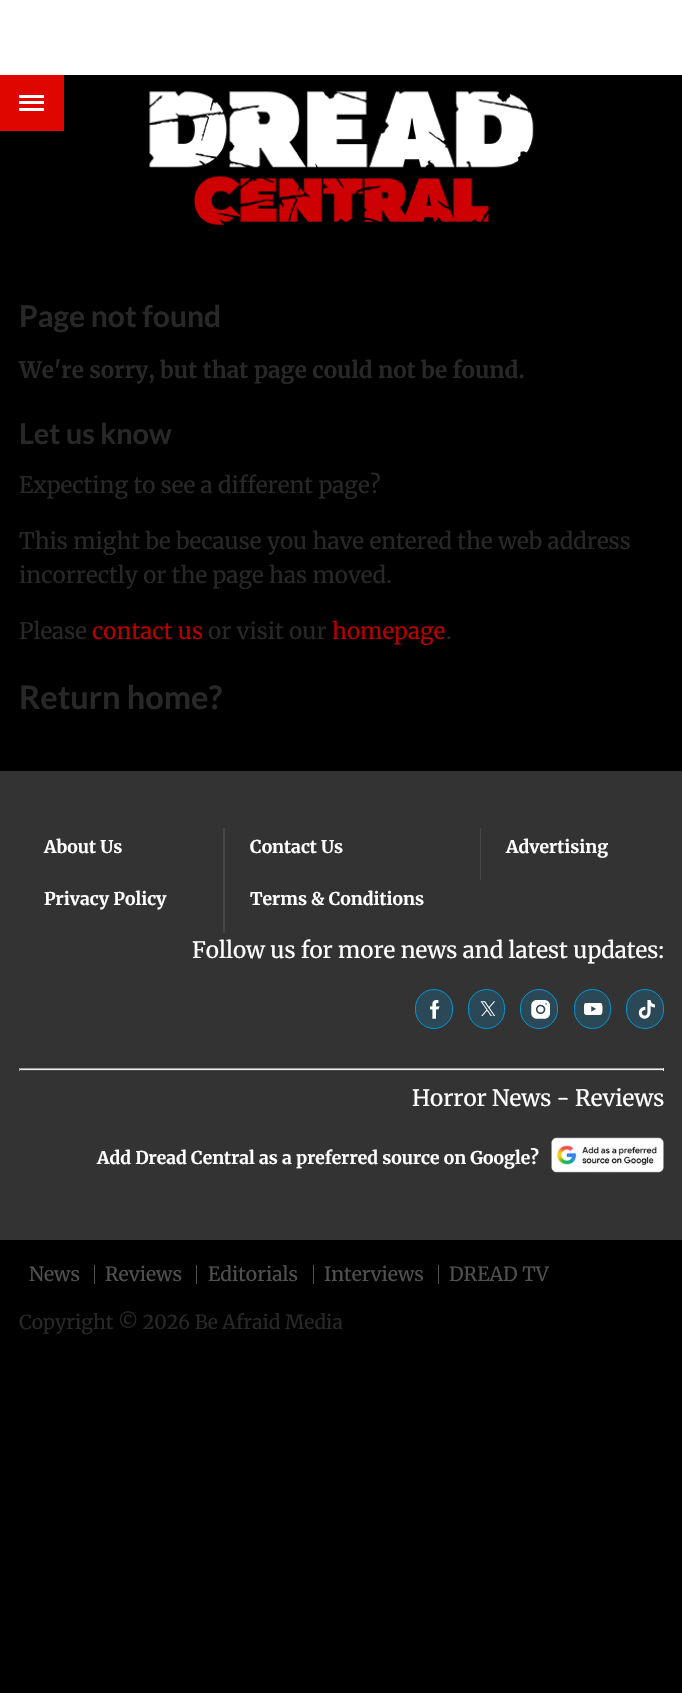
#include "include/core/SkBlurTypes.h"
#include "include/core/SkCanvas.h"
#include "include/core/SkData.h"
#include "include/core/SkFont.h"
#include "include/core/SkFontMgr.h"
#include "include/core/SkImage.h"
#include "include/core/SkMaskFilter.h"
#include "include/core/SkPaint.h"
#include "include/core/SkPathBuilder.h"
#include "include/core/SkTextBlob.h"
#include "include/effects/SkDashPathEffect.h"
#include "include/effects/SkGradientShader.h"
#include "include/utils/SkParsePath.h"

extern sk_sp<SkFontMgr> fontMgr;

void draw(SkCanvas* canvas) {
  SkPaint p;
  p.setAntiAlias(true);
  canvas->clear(SK_ColorBLACK);
  p.setColor(SK_ColorWHITE);
  canvas->drawRect(SkRect::MakeLTRB(0, 0, 682, 75), p);
  p.setColor(SkColorSetRGB(223, 6, 0));
  canvas->drawRect(SkRect::MakeLTRB(0, 75, 64, 131), p);
  p.setColor(SK_ColorWHITE);
  canvas->drawRect(SkRect::MakeLTRB(19, 95, 44, 98), p);
  canvas->drawRect(SkRect::MakeLTRB(19, 101, 44, 104), p);
  canvas->drawRect(SkRect::MakeLTRB(19, 108, 44, 111), p);
  canvas->drawImageRect(SkImages::DeferredFromEncodedData(SkData::MakeFromFileName("images/1.png")), SkRect::MakeLTRB(149, 91, 534, 225), SkSamplingOptions());
  p.setColor(SkColorSetRGB(51, 51, 51));
  canvas->drawRect(SkRect::MakeLTRB(0, 771, 682, 1240), p);
  p.setColor(SkColorSetRGB(70, 70, 70));
  canvas->drawRect(SkRect::MakeLTRB(223, 828, 225, 880), p);
  canvas->drawRect(SkRect::MakeLTRB(480, 828, 481, 880), p);
  canvas->drawRect(SkRect::MakeLTRB(223, 880, 225, 933), p);
  p.setColor(SkColorSetRGB(42, 72, 85));
  canvas->drawRoundRect(SkRect::MakeLTRB(415.5f, 989.5f, 452.5f, 1028.5f), 18.5f, 18.5f, p);
  p.setStyle(SkPaint::kStroke_Style);
  p.setStrokeWidth(1);
  p.setColor(SkColorSetRGB(1, 150, 214));
  canvas->drawRoundRect(SkRect::MakeLTRB(415.5f, 989.5f, 452.5f, 1028.5f), 18.5f, 18.5f, p);
  canvas->drawImageRect(SkImages::DeferredFromEncodedData(SkData::MakeFromFileName("images/2.png")), SkRect::MakeLTRB(430, 1000, 440, 1019), SkSamplingOptions());
  p.setStyle(SkPaint::kFill_Style);
  p.setColor(SkColorSetRGB(42, 72, 85));
  canvas->drawRoundRect(SkRect::MakeLTRB(468.5f, 989.5f, 504.5f, 1028.5f), 18, 18, p);
  p.setStyle(SkPaint::kStroke_Style);
  p.setColor(SkColorSetRGB(1, 150, 214));
  canvas->drawRoundRect(SkRect::MakeLTRB(468.5f, 989.5f, 504.5f, 1028.5f), 18, 18, p);
  canvas->drawImageRect(SkImages::DeferredFromEncodedData(SkData::MakeFromFileName("images/3.png")), SkRect::MakeLTRB(480, 1001, 496, 1016), SkSamplingOptions());
  p.setStyle(SkPaint::kFill_Style);
  p.setColor(SkColorSetRGB(42, 72, 85));
  canvas->drawRoundRect(SkRect::MakeLTRB(520.5f, 989.5f, 557.5f, 1028.5f), 18.5f, 18.5f, p);
  p.setStyle(SkPaint::kStroke_Style);
  p.setColor(SkColorSetRGB(1, 150, 214));
  canvas->drawRoundRect(SkRect::MakeLTRB(520.5f, 989.5f, 557.5f, 1028.5f), 18.5f, 18.5f, p);
  canvas->drawImageRect(SkImages::DeferredFromEncodedData(SkData::MakeFromFileName("images/4.png")), SkRect::MakeLTRB(531, 1000, 550, 1019), SkSamplingOptions());
  p.setStyle(SkPaint::kFill_Style);
  p.setColor(SkColorSetRGB(42, 72, 85));
  canvas->drawRoundRect(SkRect::MakeLTRB(574.5f, 989.5f, 610.5f, 1028.5f), 18, 18, p);
  p.setStyle(SkPaint::kStroke_Style);
  p.setColor(SkColorSetRGB(1, 150, 214));
  canvas->drawRoundRect(SkRect::MakeLTRB(574.5f, 989.5f, 610.5f, 1028.5f), 18, 18, p);
  canvas->drawImageRect(SkImages::DeferredFromEncodedData(SkData::MakeFromFileName("images/5.png")), SkRect::MakeLTRB(584, 1003, 603, 1015), SkSamplingOptions());
  p.setStyle(SkPaint::kFill_Style);
  p.setColor(SkColorSetRGB(42, 72, 85));
  canvas->drawRoundRect(SkRect::MakeLTRB(626.5f, 989.5f, 663.5f, 1028.5f), 18.5f, 18.5f, p);
  p.setStyle(SkPaint::kStroke_Style);
  p.setColor(SkColorSetRGB(1, 150, 214));
  canvas->drawRoundRect(SkRect::MakeLTRB(626.5f, 989.5f, 663.5f, 1028.5f), 18.5f, 18.5f, p);
  canvas->drawImageRect(SkImages::DeferredFromEncodedData(SkData::MakeFromFileName("images/6.png")), SkRect::MakeLTRB(638, 1000, 655, 1019), SkSamplingOptions());
  p.setStyle(SkPaint::kFill_Style);
  p.setColor(SkColorSetRGB(70, 70, 70));
  canvas->drawRect(SkRect::MakeLTRB(19, 1070, 664, 1071), p);
  p.setColor(SkColorSetRGB(159, 159, 159));
  canvas->drawRect(SkRect::MakeLTRB(19, 1068, 664, 1069), p);
  p.setColor(SkColorSetRGB(238, 238, 238));
  canvas->drawRect(SkRect::MakeLTRB(663, 1068, 664, 1071), p);
  canvas->drawRect(SkRect::MakeLTRB(19, 1069, 664, 1070), p);
  p.setColor(SkColorSetRGB(159, 159, 159));
  canvas->drawRect(SkRect::MakeLTRB(19, 1068, 20, 1071), p);
  canvas->drawImageRect(SkImages::DeferredFromEncodedData(SkData::MakeFromFileName("images/7.png")), SkRect::MakeLTRB(551, 1137, 664, 1173), SkSamplingOptions());
  p.setColor(SkColorSetRGB(80, 80, 80));
  canvas->drawRect(SkRect::MakeLTRB(94, 1265, 95, 1284), p);
  canvas->drawRect(SkRect::MakeLTRB(196, 1265, 197, 1284), p);
  canvas->drawRect(SkRect::MakeLTRB(313, 1265, 314, 1284), p);
  canvas->drawRect(SkRect::MakeLTRB(438, 1265, 439, 1284), p);
  SkFont font1(fontMgr->matchFamilyStyle("Lato", SkFontStyle::Bold()), 30);
  font1.setSubpixel(true);
  p.setColor(SkColorSetRGB(40, 40, 40));
  canvas->drawString("Page not found", 19, 327, font1, p);
  SkFont font2(fontMgr->matchFamilyStyle("Merriweather", SkFontStyle(300, SkFontStyle::kNormal_Width, SkFontStyle::kUpright_Slant)), 22.5f);
  font2.setSubpixel(true);
  canvas->drawString("We're sorry, but that page could not be found.", 19, 378, font2, p);
  SkFont font3(fontMgr->matchFamilyStyle("Lato", SkFontStyle::Bold()), 28.75f);
  font3.setSubpixel(true);
  canvas->drawString("Let us know", 19, 444, font3, p);
  SkFont font4(fontMgr->matchFamilyStyle("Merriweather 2", SkFontStyle(300, SkFontStyle::kNormal_Width, SkFontStyle::kUpright_Slant)), 22.5f);
  font4.setSubpixel(true);
  canvas->drawString("Expecting to see a different page?", 19, 493, font4, p);
  canvas->drawString("This might be because you have entered the web address", 19, 549, font4, p);
  canvas->drawString("incorrectly or the page has moved.", 19, 583, font4, p);
  canvas->drawString("Please", 19, 639, font4, p);
  p.setColor(SkColorSetRGB(181, 0, 0));
  canvas->drawString("contact us", 92, 639, font4, p);
  p.setColor(SkColorSetRGB(40, 40, 40));
  canvas->drawString("or visit our", 208, 639, font4, p);
  p.setColor(SkColorSetRGB(181, 0, 0));
  canvas->drawString("homepage", 332, 639, font4, p);
  p.setColor(SkColorSetRGB(40, 40, 40));
  canvas->drawString(".", 446, 639, font4, p);
  SkFont font5(fontMgr->matchFamilyStyle("Lato", SkFontStyle::Bold()), 32.5f);
  font5.setSubpixel(true);
  canvas->drawString("Return home?", 19, 709, font5, p);
  SkFont font6(fontMgr->matchFamilyStyle("Merriweather", SkFontStyle(300, SkFontStyle::kNormal_Width, SkFontStyle::kUpright_Slant)), 17.55f);
  font6.setSubpixel(true);
  p.setColor(SK_ColorWHITE);
  canvas->drawString("About Us", 44, 853, font6, p);
  canvas->drawString("Contact Us", 250, 853, font6, p);
  canvas->drawString("Advertising", 506, 853, font6, p);
  canvas->drawString("Privacy Policy", 44, 905, font6, p);
  canvas->drawString("Terms & Conditions", 250, 905, font6, p);
  canvas->drawString("Follow us for more news and latest updates:", 192, 958, font4, p);
  canvas->drawString("Horror News - Reviews", 412, 1106, font4, p);
  canvas->drawString("Add Dread Central as a preferred source on Google?", 97, 1164, font6, p);
  SkFont font7(fontMgr->matchFamilyStyle("Merriweather 2", SkFontStyle(300, SkFontStyle::kNormal_Width, SkFontStyle::kUpright_Slant)), 19.4f);
  font7.setSubpixel(true);
  p.setColor(SkColorSetRGB(80, 80, 80));
  canvas->drawString("News", 29, 1281, font7, p);
  canvas->drawString("Reviews", 105, 1281, font7, p);
  canvas->drawString("Editorials", 208, 1281, font7, p);
  canvas->drawString("Interviews", 324, 1281, font7, p);
  canvas->drawString("DREAD TV", 449, 1281, font7, p);
  p.setColor(SkColorSetRGB(40, 40, 40));
  canvas->drawString("Copyright © 2026 Be Afraid Media", 19, 1329, font7, p);
}
